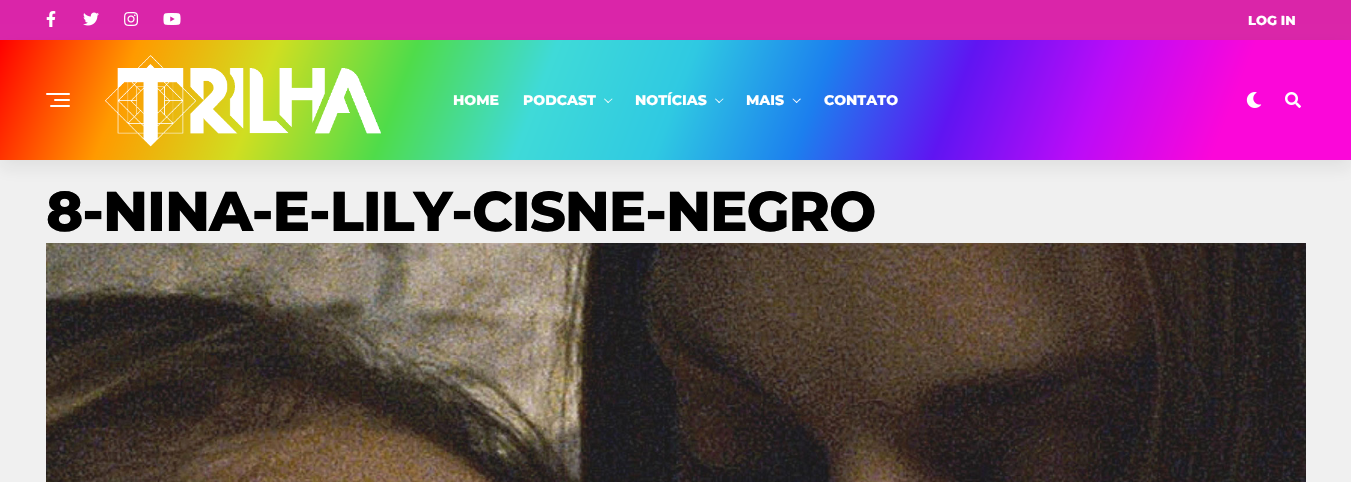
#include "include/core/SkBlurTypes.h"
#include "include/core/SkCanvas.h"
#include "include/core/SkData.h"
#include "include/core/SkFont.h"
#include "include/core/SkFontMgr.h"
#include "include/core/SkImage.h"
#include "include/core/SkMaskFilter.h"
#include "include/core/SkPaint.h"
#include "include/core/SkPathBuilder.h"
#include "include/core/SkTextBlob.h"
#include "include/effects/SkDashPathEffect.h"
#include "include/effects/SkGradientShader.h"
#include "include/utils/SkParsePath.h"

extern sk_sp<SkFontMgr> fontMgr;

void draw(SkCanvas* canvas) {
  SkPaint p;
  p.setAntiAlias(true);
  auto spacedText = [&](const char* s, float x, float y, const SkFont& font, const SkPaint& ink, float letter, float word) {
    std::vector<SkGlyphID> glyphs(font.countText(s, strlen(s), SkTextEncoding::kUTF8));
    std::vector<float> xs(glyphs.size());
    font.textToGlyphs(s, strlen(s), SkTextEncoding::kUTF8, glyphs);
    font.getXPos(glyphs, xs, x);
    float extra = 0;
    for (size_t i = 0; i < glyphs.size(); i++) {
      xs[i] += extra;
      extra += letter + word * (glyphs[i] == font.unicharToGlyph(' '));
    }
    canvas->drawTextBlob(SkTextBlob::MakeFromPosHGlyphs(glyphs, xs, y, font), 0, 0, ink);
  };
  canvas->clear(SkColorSetRGB(240, 240, 240));
  p.setColor(SkColorSetRGB(218, 37, 169));
  canvas->drawRect(SkRect::MakeLTRB(0, 0, 1351, 40), p);
  canvas->drawImageRect(SkImages::DeferredFromEncodedData(SkData::MakeFromFileName("images/1.png")), SkRect::MakeLTRB(46, 11, 56, 27), SkSamplingOptions());
  canvas->drawImageRect(SkImages::DeferredFromEncodedData(SkData::MakeFromFileName("images/2.png")), SkRect::MakeLTRB(83, 12, 99, 26), SkSamplingOptions());
  canvas->drawImageRect(SkImages::DeferredFromEncodedData(SkData::MakeFromFileName("images/3.png")), SkRect::MakeLTRB(124, 12, 138, 26), SkSamplingOptions());
  canvas->drawImageRect(SkImages::DeferredFromEncodedData(SkData::MakeFromFileName("images/4.png")), SkRect::MakeLTRB(163, 13, 181, 25), SkSamplingOptions());
  p.setColor(SkColorSetARGB(20, 21, 21, 30));
  p.setMaskFilter(SkMaskFilter::MakeBlur(kNormal_SkBlurStyle, 8));
  canvas->drawRect(SkRect::MakeLTRB(0, 48, 1351, 168), p);
  p.setMaskFilter(nullptr);
  {
    const SkColor colors[] = {SkColorSetRGB(255, 0, 0), SkColorSetRGB(255, 154, 0), SkColorSetRGB(208, 222, 33), SkColorSetRGB(79, 220, 74), SkColorSetRGB(63, 218, 216), SkColorSetRGB(47, 201, 226), SkColorSetRGB(28, 127, 238), SkColorSetRGB(95, 21, 242), SkColorSetRGB(186, 12, 248), SkColorSetRGB(251, 7, 217)};
    const float stops[] = {0, 0.1f, 0.2f, 0.3f, 0.4f, 0.5f, 0.6f, 0.7f, 0.8f, 0.9f};
    const SkPoint ends[] = {{67, -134}, {1284, 334}};
    p.setShader(SkGradientShader::MakeLinear(ends, colors, stops, 10, SkTileMode::kClamp));
    p.setAlpha(255);
  }
  canvas->drawRect(SkRect::MakeLTRB(0, 40, 1351, 160), p);
  p.setShader(nullptr);
  p.setColor(SK_ColorWHITE);
  canvas->drawRoundRect(SkRect::MakeLTRB(46, 93, 70, 95), 1, 1, p);
  canvas->drawRoundRect(SkRect::MakeLTRB(54, 99, 70, 101), 1, 1, p);
  canvas->drawRoundRect(SkRect::MakeLTRB(50, 105, 70, 107), 1, 1, p);
  canvas->drawImageRect(SkImages::DeferredFromEncodedData(SkData::MakeFromFileName("images/5.png")), SkRect::MakeLTRB(105, 55, 381, 147), SkSamplingOptions());
  canvas->drawPath(SkPathBuilder().moveTo(612, 98.5f).lineTo(612.5f, 99).lineTo(608, 103).lineTo(607.5f, 102.5f).close().detach(), p);
  canvas->drawPath(SkPathBuilder().moveTo(604.5f, 98.5f).lineTo(609, 102.5f).lineTo(608, 103).lineTo(604, 99).close().detach(), p);
  canvas->drawPath(SkPathBuilder().moveTo(723, 98.5f).lineTo(723.5f, 99).lineTo(719, 103).lineTo(718.5f, 102.5f).close().detach(), p);
  canvas->drawPath(SkPathBuilder().moveTo(715.5f, 98.5f).lineTo(720, 102.5f).lineTo(719, 103).lineTo(715, 99).close().detach(), p);
  canvas->drawPath(SkPathBuilder().moveTo(800, 98.5f).lineTo(801, 99).lineTo(796.5f, 103).lineTo(796, 102.5f).close().detach(), p);
  canvas->drawPath(SkPathBuilder().moveTo(793, 98.5f).lineTo(797.5f, 102.5f).lineTo(796.5f, 103).lineTo(792.5f, 99).close().detach(), p);
  canvas->drawImageRect(SkImages::DeferredFromEncodedData(SkData::MakeFromFileName("images/6.png")), SkRect::MakeLTRB(1246, 92, 1262, 108), SkSamplingOptions());
  canvas->drawImageRect(SkImages::DeferredFromEncodedData(SkData::MakeFromFileName("images/7.png")), SkRect::MakeLTRB(1285, 92, 1301, 108), SkSamplingOptions());
  canvas->drawImageRect(SkImages::DeferredFromEncodedData(SkData::MakeFromFileName("images/8.png")), SkRect::MakeLTRB(46, 243, 1306, 482), SkSamplingOptions());
  SkFont font1(fontMgr->matchFamilyStyle("Montserrat", SkFontStyle(800, SkFontStyle::kNormal_Width, SkFontStyle::kUpright_Slant)), 13);
  font1.setSubpixel(true);
  canvas->drawString("LOG IN", 1248, 25, font1, p);
  SkFont font2(fontMgr->matchFamilyStyle("Montserrat", SkFontStyle(800, SkFontStyle::kNormal_Width, SkFontStyle::kUpright_Slant)), 14);
  font2.setSubpixel(true);
  canvas->drawString("HOME", 453, 105, font2, p);
  canvas->drawString("PODCAST", 523, 105, font2, p);
  canvas->drawString("NOTÍCIAS", 635, 105, font2, p);
  canvas->drawString("MAIS", 746, 105, font2, p);
  canvas->drawString("CONTATO", 824, 105, font2, p);
  SkFont font3(fontMgr->matchFamilyStyle("Montserrat", SkFontStyle(800, SkFontStyle::kNormal_Width, SkFontStyle::kUpright_Slant)), 56);
  font3.setSubpixel(true);
  p.setColor(SK_ColorBLACK);
  spacedText("8-NINA-E-LILY-CISNE-NEGRO", 46, 231, font3, p, -1.1f, 0);
}
